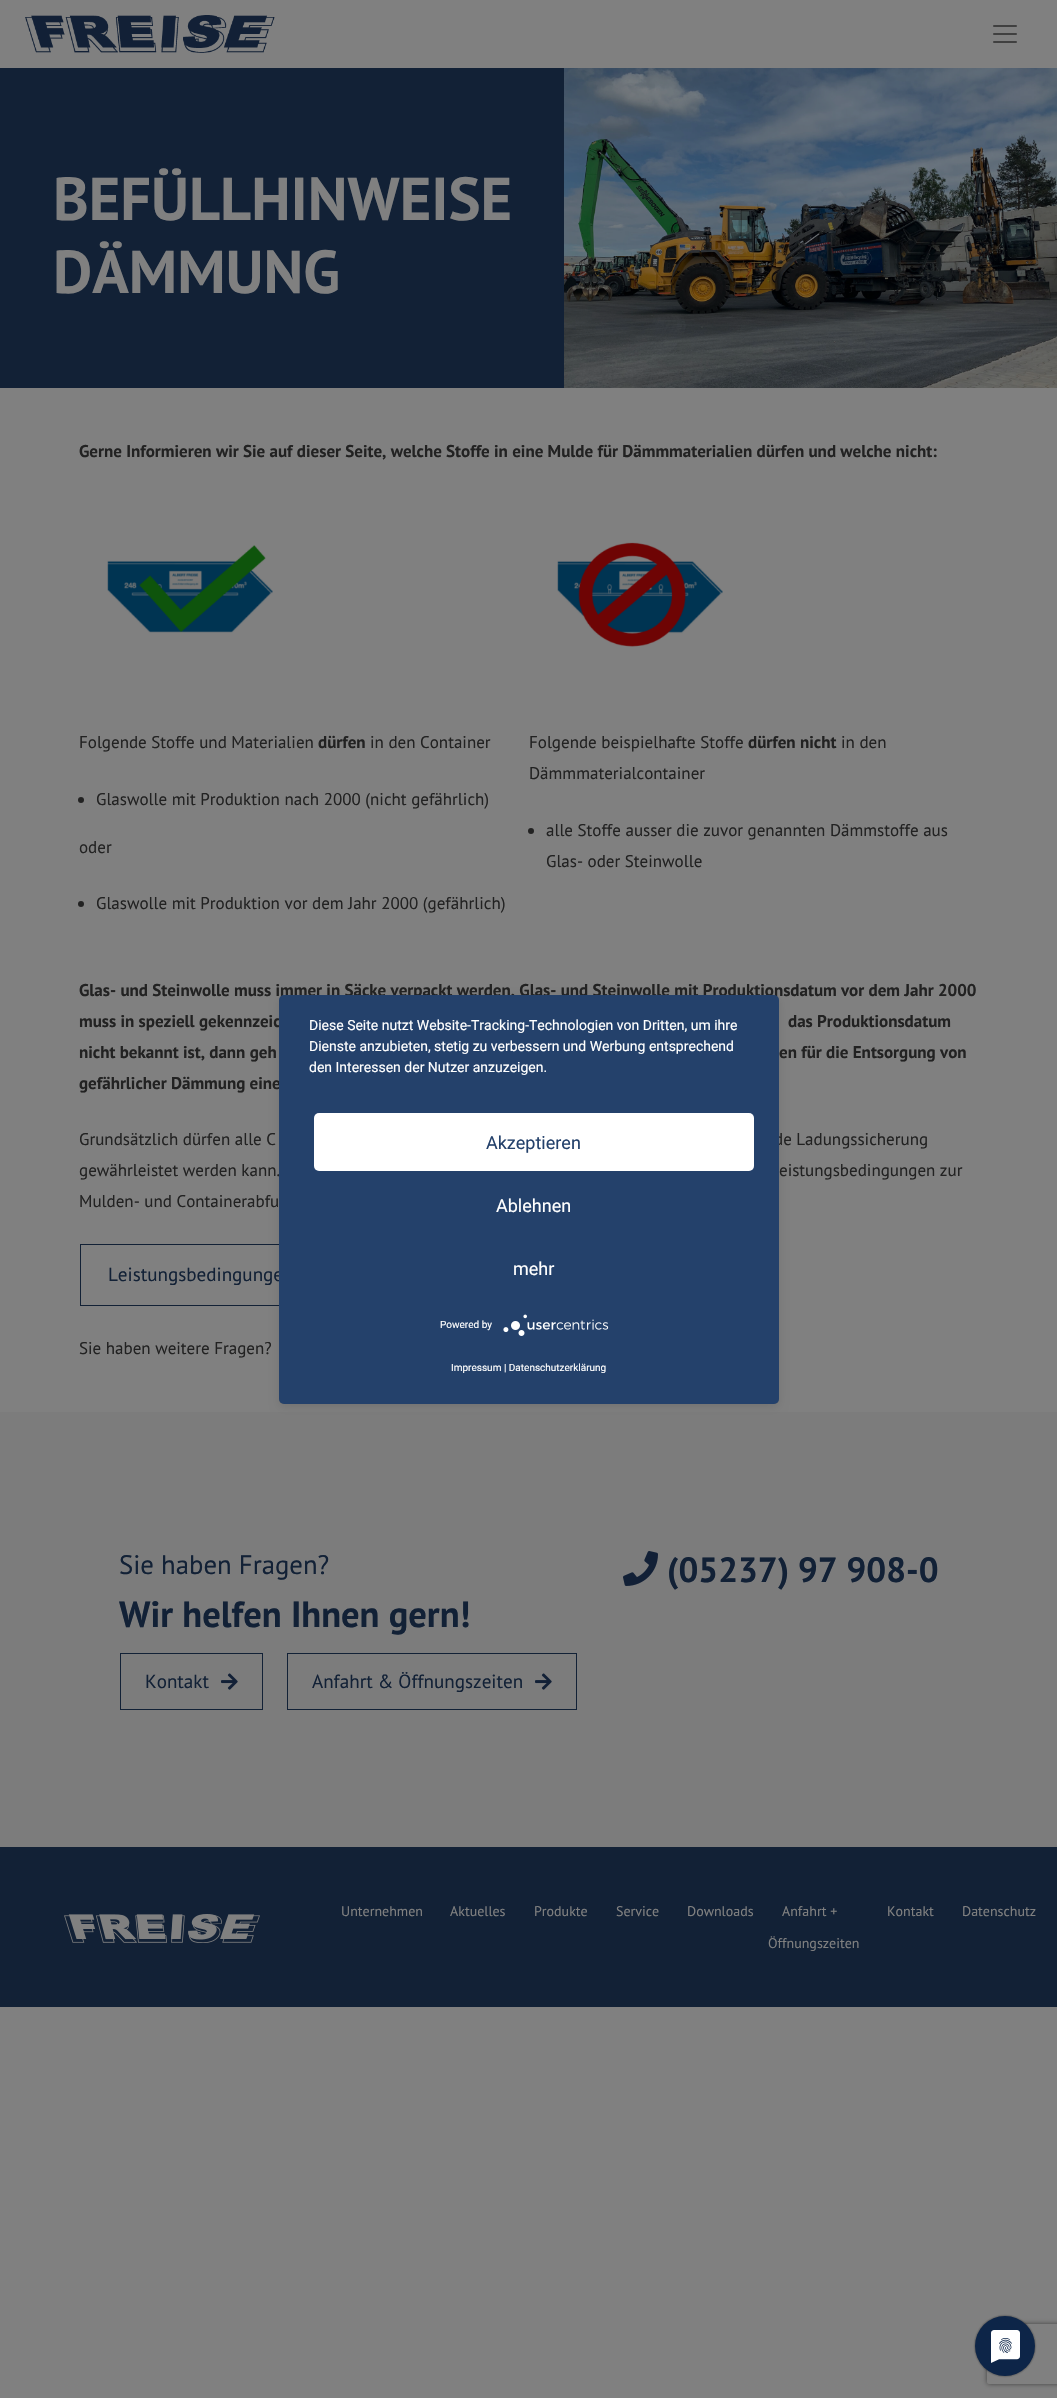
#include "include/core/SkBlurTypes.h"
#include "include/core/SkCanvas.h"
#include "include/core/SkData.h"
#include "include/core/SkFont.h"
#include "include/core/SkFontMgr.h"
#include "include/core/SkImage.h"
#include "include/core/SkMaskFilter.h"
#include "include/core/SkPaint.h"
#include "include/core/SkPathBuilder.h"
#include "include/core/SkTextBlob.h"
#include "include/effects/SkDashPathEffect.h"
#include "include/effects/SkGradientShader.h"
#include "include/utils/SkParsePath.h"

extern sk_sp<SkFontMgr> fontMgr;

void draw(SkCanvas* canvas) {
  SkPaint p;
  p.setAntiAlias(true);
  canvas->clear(SkColorSetRGB(128, 128, 128));
  canvas->drawImageRect(SkImages::DeferredFromEncodedData(SkData::MakeFromFileName("images/1.png")), SkRect::MakeLTRB(25, 15, 275, 53), SkSamplingOptions());
  canvas->drawImageRect(SkImages::DeferredFromEncodedData(SkData::MakeFromFileName("images/2.png")), SkRect::MakeLTRB(993, 25, 1017, 43), SkSamplingOptions());
  p.setColor(SkColorSetRGB(18, 33, 54));
  canvas->drawRect(SkRect::MakeLTRB(0, 68, 564, 388), p);
  canvas->drawImageRect(SkImages::DeferredFromEncodedData(SkData::MakeFromFileName("images/3.png")), SkRect::MakeLTRB(564, 68, 1057, 388), SkSamplingOptions());
  canvas->drawImageRect(SkImages::DeferredFromEncodedData(SkData::MakeFromFileName("images/4.png")), SkRect::MakeLTRB(107, 545, 273, 633), SkSamplingOptions());
  p.setColor(SkColorSetRGB(34, 34, 34));
  canvas->drawCircle(81, 800, 3, p);
  canvas->drawCircle(81, 904, 3, p);
  canvas->drawImageRect(SkImages::DeferredFromEncodedData(SkData::MakeFromFileName("images/5.png")), SkRect::MakeLTRB(557, 542, 723, 647), SkSamplingOptions());
  canvas->drawCircle(531, 831, 3, p);
  p.setStyle(SkPaint::kStroke_Style);
  p.setStrokeWidth(1);
  p.setColor(SkColorSetRGB(18, 33, 54));
  canvas->drawRect(SkRect::MakeLTRB(80.5f, 1244.5f, 321.5f, 1305.5f), p);
  p.setStyle(SkPaint::kFill_Style);
  p.setColor(SkColorSetRGB(124, 124, 124));
  canvas->drawRect(SkRect::MakeLTRB(0, 1412, 1057, 1847), p);
  p.setColor(SkColorSetARGB(26, 0, 0, 0));
  p.setMaskFilter(SkMaskFilter::MakeBlur(kNormal_SkBlurStyle, 5));
  canvas->drawRoundRect(SkRect::MakeLTRB(279, 998, 779, 1407), 5, 5, p);
  p.setMaskFilter(nullptr);
  canvas->save();
  canvas->clipPath(SkPathBuilder().moveTo(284, 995).lineTo(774, 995).cubicTo(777, 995, 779, 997, 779, 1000).lineTo(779, 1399).cubicTo(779, 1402, 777, 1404, 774, 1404).lineTo(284, 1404).cubicTo(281, 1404, 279, 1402, 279, 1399).lineTo(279, 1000).cubicTo(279, 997, 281, 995, 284, 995).close().detach(), true);
  p.setColor(SkColorSetARGB(77, 0, 0, 0));
  p.setMaskFilter(SkMaskFilter::MakeBlur(kNormal_SkBlurStyle, 18));
  canvas->drawRect(SkRect::MakeLTRB(279, 1001, 779, 1410), p);
  p.setMaskFilter(nullptr);
  canvas->restore();
  canvas->save();
  canvas->clipPath(SkPathBuilder(SkPathFillType::kEvenOdd).moveTo(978, 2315).lineTo(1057, 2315).lineTo(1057, 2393).lineTo(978, 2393).close().moveTo(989, 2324).lineTo(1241, 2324).cubicTo(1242, 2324, 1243, 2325, 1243, 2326).lineTo(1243, 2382).cubicTo(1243, 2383, 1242, 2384, 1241, 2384).lineTo(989, 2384).cubicTo(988, 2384, 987, 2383, 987, 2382).lineTo(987, 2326).cubicTo(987, 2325, 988, 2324, 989, 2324).close().detach(), true);
  p.setColor(SkColorSetRGB(64, 64, 64));
  p.setMaskFilter(SkMaskFilter::MakeBlur(kNormal_SkBlurStyle, 2.5f));
  canvas->drawRoundRect(SkRect::MakeLTRB(987, 2324, 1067, 2384), 2, 2, p);
  p.setMaskFilter(nullptr);
  canvas->restore();
  canvas->drawImageRect(SkImages::DeferredFromEncodedData(SkData::MakeFromFileName("images/7.png")), SkRect::MakeLTRB(973, 2314, 1037, 2378), SkSamplingOptions());
  p.setStyle(SkPaint::kStroke_Style);
  p.setColor(SkColorSetRGB(18, 33, 54));
  canvas->drawRect(SkRect::MakeLTRB(120.5f, 1653.5f, 262.5f, 1709.5f), p);
  canvas->drawImageRect(SkImages::DeferredFromEncodedData(SkData::MakeFromFileName("images/8.png")), SkRect::MakeLTRB(221, 1673, 238, 1690), SkSamplingOptions());
  canvas->drawRect(SkRect::MakeLTRB(287.5f, 1653.5f, 576.5f, 1709.5f), p);
  canvas->drawImageRect(SkImages::DeferredFromEncodedData(SkData::MakeFromFileName("images/8.png")), SkRect::MakeLTRB(535, 1673, 552, 1690), SkSamplingOptions());
  canvas->drawImageRect(SkImages::DeferredFromEncodedData(SkData::MakeFromFileName("images/9.png")), SkRect::MakeLTRB(623, 1551, 658, 1586), SkSamplingOptions());
  p.setStyle(SkPaint::kFill_Style);
  canvas->drawRect(SkRect::MakeLTRB(0, 1847, 1057, 2007), p);
  canvas->drawImageRect(SkImages::DeferredFromEncodedData(SkData::MakeFromFileName("images/10.png")), SkRect::MakeLTRB(64, 1914, 260, 1943), SkSamplingOptions());
  SkFont font1(fontMgr->matchFamilyStyle("PT Sans", SkFontStyle::Bold()), 60.5f);
  font1.setSubpixel(true);
  p.setColor(SkColorSetRGB(128, 128, 128));
  canvas->drawString("BEFÜLLHINWEISE", 53, 220, font1, p);
  canvas->drawString("DÄMMUNG", 53, 293, font1, p);
  SkFont font2(fontMgr->matchFamilyStyle("PT Sans", SkFontStyle::Bold()), 17);
  font2.setSubpixel(true);
  p.setColor(SkColorSetRGB(34, 34, 34));
  canvas->drawString("Gerne Informieren wir Sie auf dieser Seite, welche Stoffe in eine Mulde für Dämmmaterialien dürfen und welche nicht:", 79, 457, font2, p);
  SkFont font3(fontMgr->matchFamilyStyle("PT Sans", SkFontStyle::Normal()), 17);
  font3.setSubpixel(true);
  canvas->drawString("Folgende Stoffe und Materialien", 79, 748, font3, p);
  canvas->drawString("dürfen", 318, 748, font2, p);
  canvas->drawString("in den Container", 370, 748, font3, p);
  canvas->drawString("Glaswolle mit Produktion nach 2000 (nicht gefährlich)", 96, 805, font3, p);
  canvas->drawString("oder", 79, 853, font3, p);
  canvas->drawString("Glaswolle mit Produktion vor dem Jahr 2000 (gefährlich)", 96, 909, font3, p);
  canvas->drawString("Folgende beispielhafte Stoffe", 529, 748, font3, p);
  canvas->drawString("dürfen nicht", 748, 748, font2, p);
  canvas->drawString("in den", 841, 748, font3, p);
  canvas->drawString("Dämmmaterialcontainer", 529, 779, font3, p);
  canvas->drawString("alle Stoffe ausser die zuvor genannten Dämmstoffe aus", 546, 836, font3, p);
  canvas->drawString("Glas- oder Steinwolle", 546, 867, font3, p);
  canvas->drawString("Glas- und Steinwolle muss immer in Säcke verpackt werden, Glas- und Steinwolle mit Produktionsdatum vor dem Jahr 2000", 79, 996, font2, p);
  canvas->drawString("muss in speziell gekennzeic", 79, 1027, font2, p);
  canvas->drawString("das Produktionsdatum", 788, 1027, font2, p);
  canvas->drawString("nicht bekannt ist, dann geh", 79, 1058, font2, p);
  canvas->drawString("en für die Entsorgung von", 779, 1058, font2, p);
  canvas->drawString("gefährlicher Dämmung eine", 79, 1089, font2, p);
  canvas->drawString("Grundsätzlich dürfen alle C", 79, 1145, font3, p);
  canvas->drawString("de Ladungssicherung", 774, 1145, font3, p);
  canvas->drawString("gewährleistet werden kann.", 79, 1176, font3, p);
  canvas->drawString("eistungsbedingungen zur", 779, 1176, font3, p);
  canvas->drawString("Mulden- und Containerabfu", 79, 1207, font3, p);
  SkFont font4(fontMgr->matchFamilyStyle("PT Sans", SkFontStyle::Normal()), 19.1f);
  font4.setSubpixel(true);
  p.setColor(SkColorSetRGB(18, 33, 54));
  canvas->drawString("Leistungsbedingunge", 108, 1281, font4, p);
  p.setColor(SkColorSetRGB(34, 34, 34));
  canvas->drawString("Sie haben weitere Fragen?", 79, 1354, font3, p);
  p.setColor(SkColorSetRGB(36, 65, 107));
  canvas->drawRoundRect(SkRect::MakeLTRB(279, 995, 779, 1404), 5, 5, p);
  SkFont font5(fontMgr->matchFamilyStyle("Roboto", SkFontStyle::Normal()), 14);
  font5.setSubpixel(true);
  p.setColor(SK_ColorWHITE);
  canvas->drawString("Diese Seite nutzt Website-Tracking-Technologien von Dritten, um ihre", 309, 1030, font5, p);
  canvas->drawString("Dienste anzubieten, stetig zu verbessern und Werbung entsprechend", 309, 1051, font5, p);
  canvas->drawString("den Interessen der Nutzer anzuzeigen.", 309, 1072, font5, p);
  canvas->drawRoundRect(SkRect::MakeLTRB(314, 1113, 754, 1171), 5, 5, p);
  SkFont font6(fontMgr->matchFamilyStyle("Roboto", SkFontStyle::Normal()), 18);
  font6.setSubpixel(true);
  p.setColor(SkColorSetRGB(36, 65, 107));
  canvas->drawString("Akzeptieren", 486, 1149, font6, p);
  p.setColor(SK_ColorWHITE);
  canvas->drawString("Ablehnen", 496, 1212, font6, p);
  canvas->drawString("mehr", 513, 1275, font6, p);
  SkFont font7(fontMgr->matchFamilyStyle("Roboto", SkFontStyle::Normal()), 10);
  font7.setSubpixel(true);
  canvas->drawString("Powered by", 440, 1328, font7, p);
  canvas->drawImageRect(SkImages::DeferredFromEncodedData(SkData::MakeFromFileName("images/6.png")), SkRect::MakeLTRB(503, 1314, 609, 1336), SkSamplingOptions());
  canvas->drawString("Impressum | Datenschutzerklärung", 451, 1371, font7, p);
  SkFont font8(fontMgr->matchFamilyStyle("PT Sans", SkFontStyle::Normal()), 26.75f);
  font8.setSubpixel(true);
  p.setColor(SkColorSetRGB(18, 33, 54));
  canvas->drawString("Sie haben Fragen?", 119, 1574, font8, p);
  SkFont font9(fontMgr->matchFamilyStyle("PT Sans", SkFontStyle::Bold()), 36.5f);
  font9.setSubpixel(true);
  canvas->drawString("Wir helfen Ihnen gern!", 119, 1627, font9, p);
  canvas->drawString("Kontakt", 145, 1688, font4, p);
  canvas->drawString("Anfahrt & Öffnungszeiten", 312, 1688, font4, p);
  SkFont font10(fontMgr->matchFamilyStyle("PT Sans", SkFontStyle::Bold()), 35);
  font10.setSubpixel(true);
  canvas->drawString("(05237) 97 908-0", 667, 1582, font10, p);
  SkFont font11(fontMgr->matchFamilyStyle("PT Sans", SkFontStyle::Normal()), 14);
  font11.setSubpixel(true);
  p.setColor(SkColorSetRGB(128, 128, 128));
  canvas->drawString("Unternehmen", 341, 1916, font11, p);
  canvas->drawString("Aktuelles", 450, 1916, font11, p);
  canvas->drawString("Produkte", 534, 1916, font11, p);
  canvas->drawString("Service", 616, 1916, font11, p);
  canvas->drawString("Downloads", 687, 1916, font11, p);
  canvas->drawString("Anfahrt +", 782, 1916, font11, p);
  canvas->drawString("Öffnungszeiten", 768, 1948, font11, p);
  canvas->drawString("Kontakt", 887, 1916, font11, p);
  canvas->drawString("Datenschutz", 962, 1916, font11, p);
}
